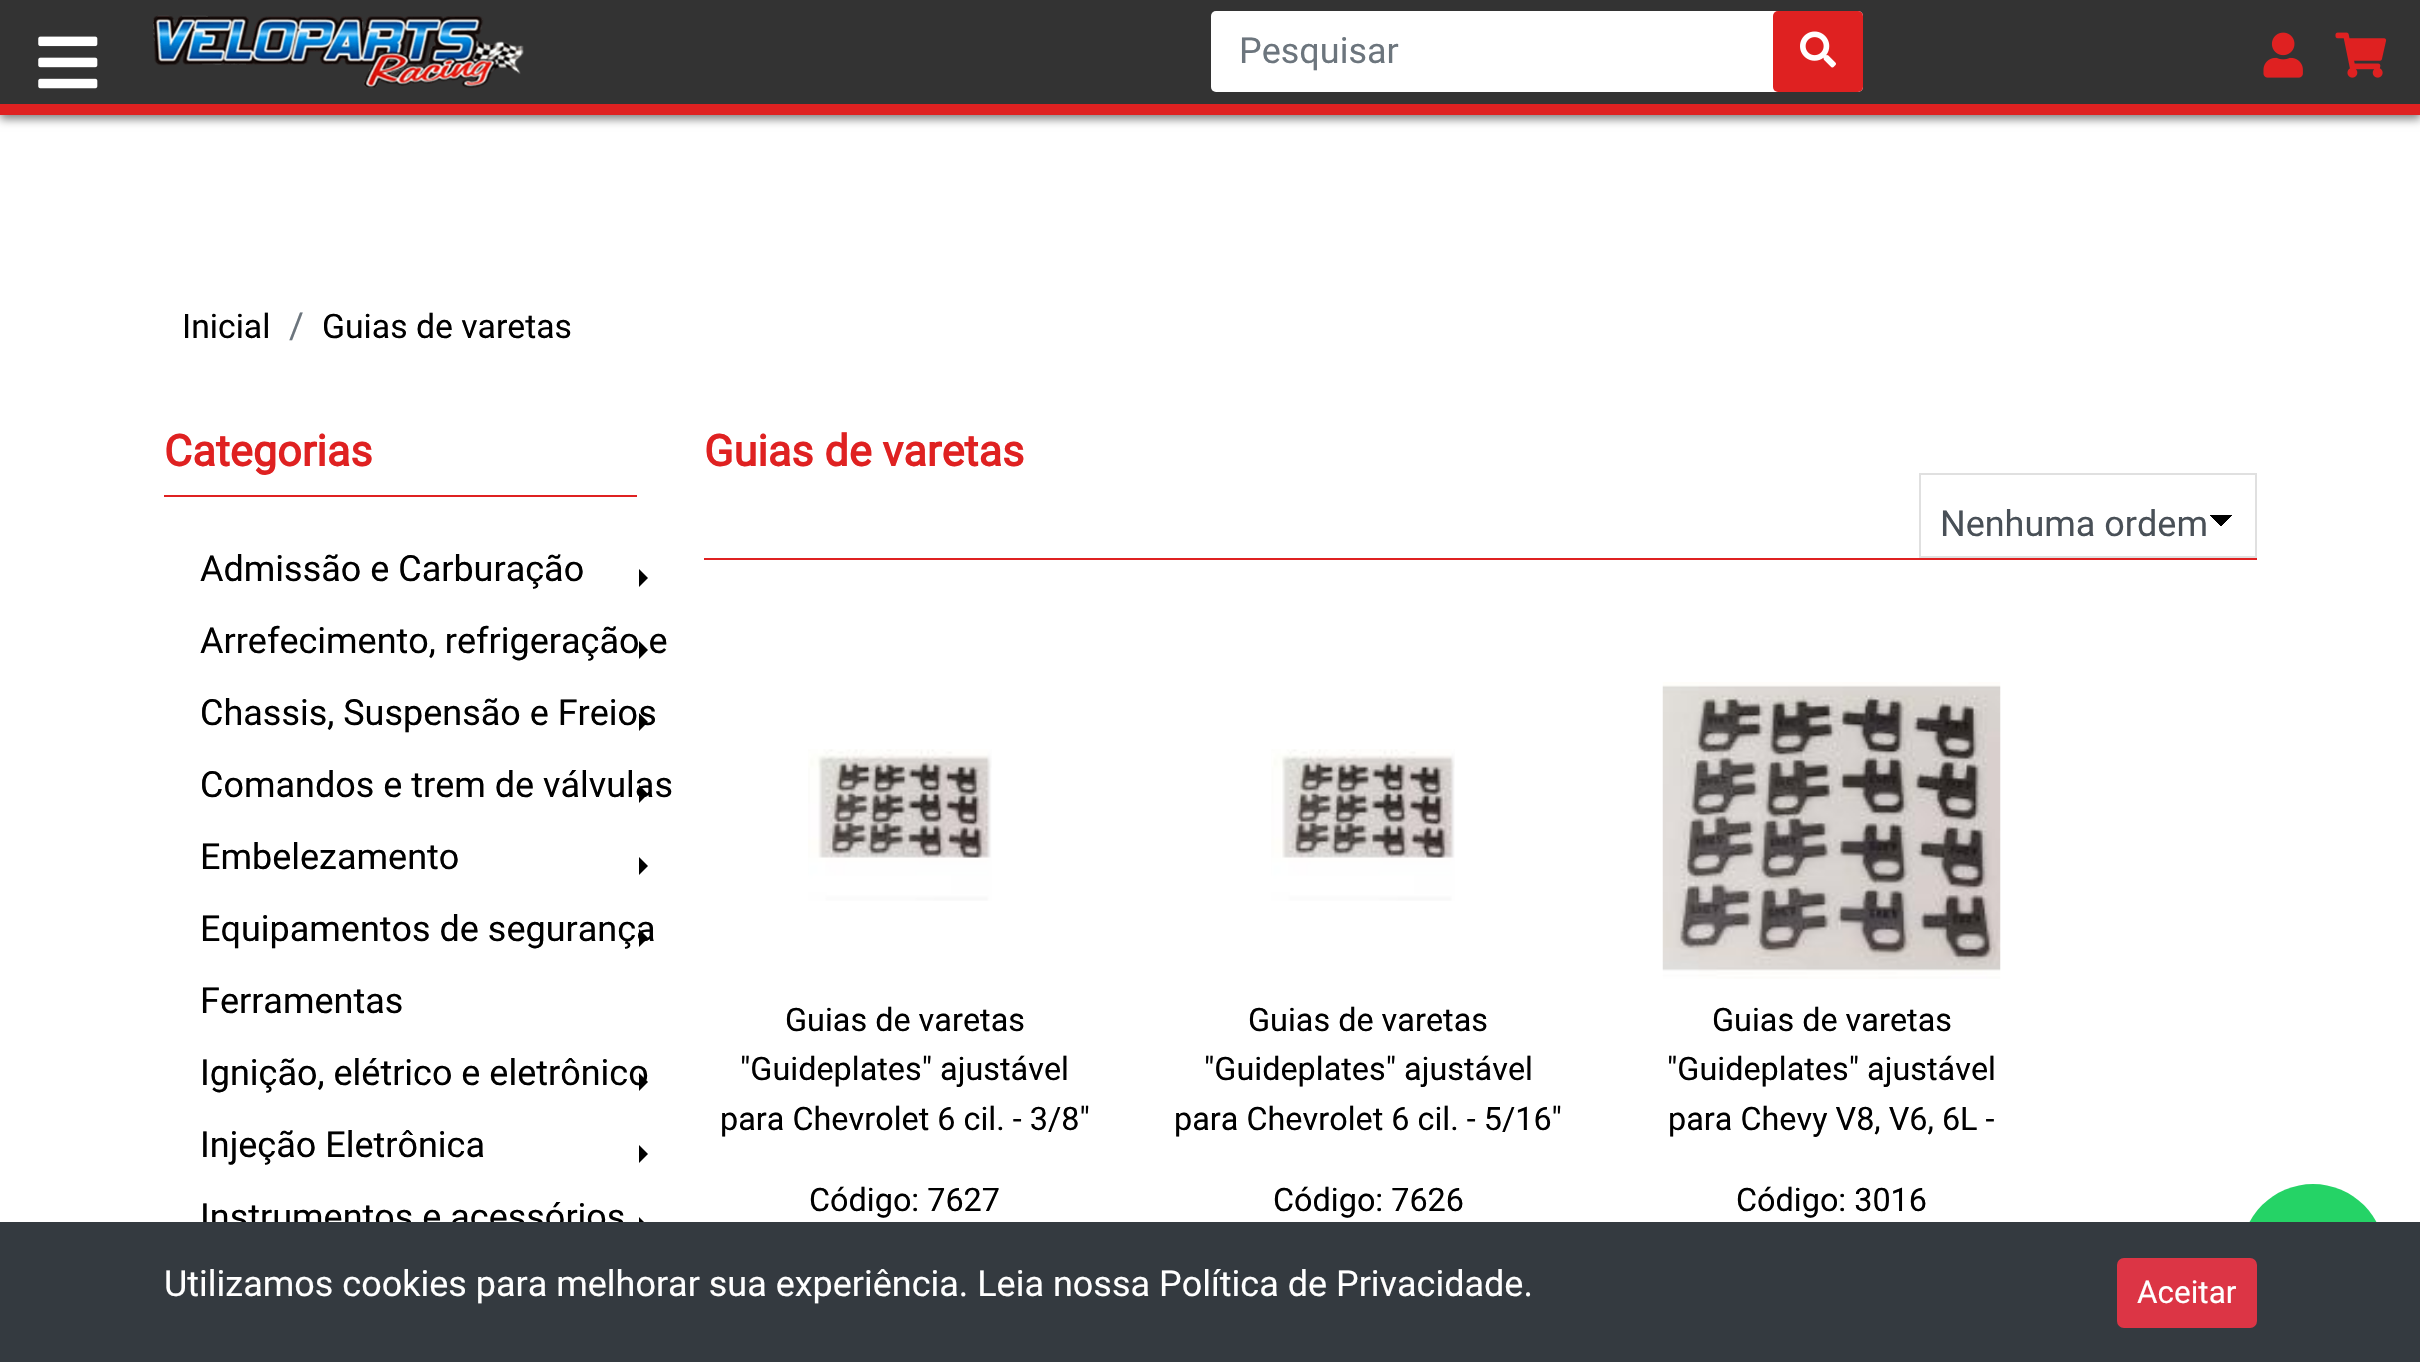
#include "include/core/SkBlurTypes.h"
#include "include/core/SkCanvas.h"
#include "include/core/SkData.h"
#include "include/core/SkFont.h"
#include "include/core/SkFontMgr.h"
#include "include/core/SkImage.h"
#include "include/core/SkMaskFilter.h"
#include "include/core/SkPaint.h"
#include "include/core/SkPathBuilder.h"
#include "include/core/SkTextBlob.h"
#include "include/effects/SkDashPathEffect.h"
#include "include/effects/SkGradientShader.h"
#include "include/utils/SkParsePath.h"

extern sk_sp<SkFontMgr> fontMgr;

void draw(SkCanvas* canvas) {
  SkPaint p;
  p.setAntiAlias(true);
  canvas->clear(SK_ColorWHITE);
  p.setColor(SkColorSetARGB(128, 0, 0, 0));
  p.setMaskFilter(SkMaskFilter::MakeBlur(kNormal_SkBlurStyle, 4.5f));
  canvas->drawRect(SkRect::MakeLTRB(0, 5, 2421, 119), p);
  p.setMaskFilter(nullptr);
  p.setColor(SkColorSetRGB(51, 51, 51));
  canvas->drawRect(SkRect::MakeLTRB(0, 0, 2420, 104), p);
  p.setColor(SkColorSetRGB(223, 33, 33));
  canvas->drawRect(SkRect::MakeLTRB(0, 104, 2420, 115), p);
  canvas->drawImageRect(SkImages::DeferredFromEncodedData(SkData::MakeFromFileName("images/1.png")), SkRect::MakeLTRB(38, 36, 98, 89), SkSamplingOptions());
  canvas->drawImageRect(SkImages::DeferredFromEncodedData(SkData::MakeFromFileName("images/2.png")), SkRect::MakeLTRB(153, 15, 524, 89), SkSamplingOptions());
  p.setColor(SK_ColorWHITE);
  canvas->drawRoundRect(SkRect::MakeLTRB(1211, 11, 1863, 92), 5, 5, p);
  p.setColor(SkColorSetRGB(223, 33, 33));
  canvas->drawRoundRect(SkRect::MakeLTRB(1773, 11, 1863, 92), 5, 5, p);
  canvas->drawImageRect(SkImages::DeferredFromEncodedData(SkData::MakeFromFileName("images/3.png")), SkRect::MakeLTRB(1800, 31, 1836, 68), SkSamplingOptions());
  canvas->drawImageRect(SkImages::DeferredFromEncodedData(SkData::MakeFromFileName("images/4.png")), SkRect::MakeLTRB(2263, 32, 2303, 78), SkSamplingOptions());
  canvas->drawImageRect(SkImages::DeferredFromEncodedData(SkData::MakeFromFileName("images/5.png")), SkRect::MakeLTRB(2335, 32, 2387, 78), SkSamplingOptions());
  canvas->drawRect(SkRect::MakeLTRB(164, 495, 637, 497), p);
  p.setColor(SK_ColorBLACK);
  canvas->drawPath(SkPathBuilder().moveTo(639, 587).lineTo(639, 569).lineTo(648, 578).close().detach(), p);
  canvas->drawPath(SkPathBuilder().moveTo(639, 659).lineTo(639, 641).lineTo(648, 650).close().detach(), p);
  canvas->drawPath(SkPathBuilder().moveTo(639, 731).lineTo(639, 713).lineTo(648, 722).close().detach(), p);
  canvas->drawPath(SkPathBuilder().moveTo(639, 803).lineTo(639, 785).lineTo(648, 794).close().detach(), p);
  canvas->drawPath(SkPathBuilder().moveTo(639, 875).lineTo(639, 857).lineTo(648, 866).close().detach(), p);
  canvas->drawPath(SkPathBuilder().moveTo(639, 947).lineTo(639, 929).lineTo(648, 938).close().detach(), p);
  canvas->drawPath(SkPathBuilder().moveTo(639, 1091).lineTo(639, 1073).lineTo(648, 1082).close().detach(), p);
  canvas->drawPath(SkPathBuilder().moveTo(639, 1163).lineTo(639, 1145).lineTo(648, 1154).close().detach(), p);
  canvas->drawPath(SkPathBuilder().moveTo(639, 1235).lineTo(639, 1217).lineTo(648, 1226).close().detach(), p);
  {
    const SkColor colors[] = {SK_ColorBLACK, SK_ColorWHITE};
    const float stops[] = {0.5f, 0.5f};
    const SkPoint ends[] = {{2221, 515}, {2232, 527}};
    p.setShader(SkGradientShader::MakeLinear(ends, colors, stops, 2, SkTileMode::kClamp));
    p.setAlpha(255);
  }
  canvas->drawRect(SkRect::MakeLTRB(2221, 515, 2232, 526), p);
  {
    const SkColor colors[] = {SK_ColorWHITE, SK_ColorBLACK};
    const float stops[] = {0.5f, 0.5f};
    const SkPoint ends[] = {{2210, 527}, {2221, 515}};
    p.setShader(SkGradientShader::MakeLinear(ends, colors, stops, 2, SkTileMode::kClamp));
    p.setAlpha(255);
  }
  canvas->drawRect(SkRect::MakeLTRB(2210, 515, 2221, 526), p);
  p.setStyle(SkPaint::kStroke_Style);
  p.setStrokeWidth(2);
  p.setShader(nullptr);
  p.setColor(SkColorSetRGB(224, 224, 224));
  canvas->drawRect(SkRect::MakeLTRB(1920, 474, 2256, 557), p);
  p.setStyle(SkPaint::kFill_Style);
  p.setColor(SkColorSetRGB(223, 33, 33));
  canvas->drawRect(SkRect::MakeLTRB(704, 558, 2257, 560), p);
  canvas->drawImageRect(SkImages::DeferredFromEncodedData(SkData::MakeFromFileName("images/6.png")), SkRect::MakeLTRB(808, 749, 992, 901), SkSamplingOptions());
  canvas->drawImageRect(SkImages::DeferredFromEncodedData(SkData::MakeFromFileName("images/7.png")), SkRect::MakeLTRB(1271, 749, 1455, 901), SkSamplingOptions());
  canvas->drawImageRect(SkImages::DeferredFromEncodedData(SkData::MakeFromFileName("images/8.png")), SkRect::MakeLTRB(1662, 682, 2001, 979), SkSamplingOptions());
  p.setColor(SkColorSetRGB(37, 211, 102));
  canvas->drawCircle(2313, 1256, 72, p);
  SkFont font1(fontMgr->matchFamilyStyle("Roboto", SkFontStyle::Normal()), 36);
  font1.setSubpixel(true);
  p.setColor(SkColorSetRGB(108, 117, 125));
  canvas->drawString("Pesquisar", 1239, 63, font1, p);
  SkFont font2(fontMgr->matchFamilyStyle("Roboto", SkFontStyle::Normal()), 33.75f);
  font2.setSubpixel(true);
  p.setColor(SK_ColorBLACK);
  canvas->drawString("Inicial", 182, 338, font2, p);
  p.setColor(SkColorSetRGB(108, 117, 125));
  canvas->drawString("/", 289, 338, font1, p);
  p.setColor(SK_ColorBLACK);
  canvas->drawString("Guias de varetas", 322, 338, font2, p);
  SkFont font3(fontMgr->matchFamilyStyle("Roboto", SkFontStyle::Bold()), 43.25f);
  font3.setSubpixel(true);
  p.setColor(SkColorSetRGB(223, 33, 33));
  canvas->drawString("Categorias", 164, 466, font3, p);
  p.setColor(SK_ColorBLACK);
  canvas->drawString("Admissão e Carburação", 200, 581, font1, p);
  canvas->drawString("Arrefecimento, refrigeração e", 200, 653, font1, p);
  canvas->drawString("Chassis, Suspensão e Freios", 200, 725, font1, p);
  canvas->drawString("Comandos e trem de válvulas", 200, 797, font1, p);
  canvas->drawString("Embelezamento", 200, 869, font1, p);
  canvas->drawString("Equipamentos de segurança", 200, 941, font1, p);
  canvas->drawString("Ferramentas", 200, 1013, font1, p);
  canvas->drawString("Ignição, elétrico e eletrônico", 200, 1085, font1, p);
  canvas->drawString("Injeção Eletrônica", 200, 1157, font1, p);
  canvas->drawString("Instrumentos e acessórios", 200, 1229, font1, p);
  p.setColor(SkColorSetRGB(223, 33, 33));
  canvas->drawString("Guias de varetas", 704, 466, font3, p);
  p.setColor(SkColorSetRGB(73, 80, 87));
  canvas->drawString("Nenhuma ordem", 1940, 536, font1, p);
  SkFont font4(fontMgr->matchFamilyStyle("Roboto", SkFontStyle::Normal()), 32.4f);
  font4.setSubpixel(true);
  p.setColor(SK_ColorBLACK);
  canvas->drawString("Guias de varetas", 785, 1031, font4, p);
  canvas->drawString("\"Guideplates\" ajustável", 740, 1080, font4, p);
  canvas->drawString("para Chevrolet 6 cil. - 3/8\"", 720, 1130, font4, p);
  canvas->drawString("Código: 7627", 809, 1211, font4, p);
  canvas->drawString("Guias de varetas", 1248, 1031, font4, p);
  canvas->drawString("\"Guideplates\" ajustável", 1204, 1080, font4, p);
  canvas->drawString("para Chevrolet 6 cil. - 5/16\"", 1174, 1130, font4, p);
  canvas->drawString("Código: 7626", 1273, 1211, font4, p);
  canvas->drawString("Guias de varetas", 1712, 1031, font4, p);
  canvas->drawString("\"Guideplates\" ajustável", 1667, 1080, font4, p);
  canvas->drawString("para Chevy V8, V6, 6L -", 1668, 1130, font4, p);
  canvas->drawString("Código: 3016", 1736, 1211, font4, p);
  p.setColor(SkColorSetRGB(52, 58, 64));
  canvas->drawRect(SkRect::MakeLTRB(0, 1222, 2420, 1362), p);
  p.setColor(SK_ColorWHITE);
  canvas->drawString("Utilizamos cookies para melhorar sua experiência. Leia nossa Política de Privacidade.", 164, 1296, font1, p);
  p.setColor(SkColorSetRGB(220, 53, 69));
  canvas->drawRoundRect(SkRect::MakeLTRB(2118, 1259, 2256, 1327), 6, 6, p);
  p.setStyle(SkPaint::kStroke_Style);
  canvas->drawRoundRect(SkRect::MakeLTRB(2118, 1259, 2256, 1327), 6, 6, p);
  SkFont font5(fontMgr->matchFamilyStyle("Roboto", SkFontStyle::Normal()), 31.5f);
  font5.setSubpixel(true);
  p.setStyle(SkPaint::kFill_Style);
  p.setColor(SK_ColorWHITE);
  canvas->drawString("Aceitar", 2137, 1303, font5, p);
}
